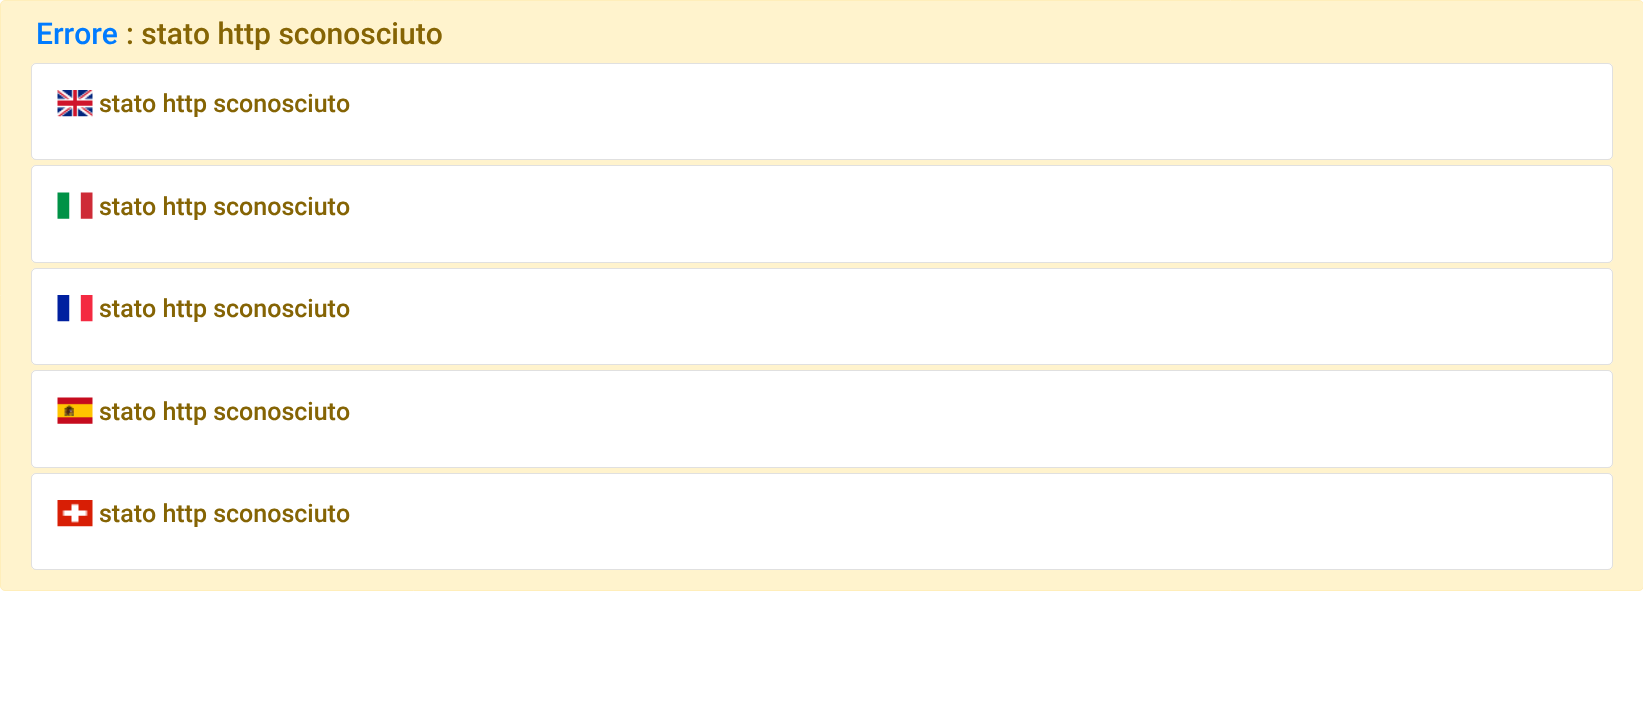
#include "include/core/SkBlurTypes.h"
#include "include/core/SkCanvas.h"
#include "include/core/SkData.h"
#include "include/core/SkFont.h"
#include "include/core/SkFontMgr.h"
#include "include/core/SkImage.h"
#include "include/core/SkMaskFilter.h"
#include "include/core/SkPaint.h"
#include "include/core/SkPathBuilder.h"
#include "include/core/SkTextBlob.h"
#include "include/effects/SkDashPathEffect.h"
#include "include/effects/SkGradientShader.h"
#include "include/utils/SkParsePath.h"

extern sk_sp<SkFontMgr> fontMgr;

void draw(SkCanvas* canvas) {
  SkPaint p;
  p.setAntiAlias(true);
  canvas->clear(SK_ColorWHITE);
  p.setColor(SkColorSetRGB(255, 243, 205));
  canvas->drawRoundRect(SkRect::MakeLTRB(0.5f, 0.5f, 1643.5f, 590.5f), 4.5f, 4.5f, p);
  p.setStyle(SkPaint::kStroke_Style);
  p.setStrokeWidth(1);
  p.setColor(SkColorSetRGB(255, 238, 186));
  canvas->drawRoundRect(SkRect::MakeLTRB(0.5f, 0.5f, 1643.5f, 590.5f), 4.5f, 4.5f, p);
  p.setStyle(SkPaint::kFill_Style);
  p.setColor(SK_ColorWHITE);
  canvas->drawRoundRect(SkRect::MakeLTRB(31, 63, 1613, 160), 5, 5, p);
  p.setStyle(SkPaint::kStroke_Style);
  p.setColor(SkColorSetARGB(31, 0, 0, 0));
  canvas->drawRoundRect(SkRect::MakeLTRB(31.5f, 63.5f, 1612.5f, 159.5f), 4.5f, 4.5f, p);
  canvas->drawImageRect(SkImages::DeferredFromEncodedData(SkData::MakeFromFileName("images/1.png")), SkRect::MakeLTRB(57, 90, 93, 117), SkSamplingOptions());
  p.setStyle(SkPaint::kFill_Style);
  p.setColor(SK_ColorWHITE);
  canvas->drawRoundRect(SkRect::MakeLTRB(31, 165, 1613, 263), 5, 5, p);
  p.setStyle(SkPaint::kStroke_Style);
  p.setColor(SkColorSetARGB(31, 0, 0, 0));
  canvas->drawRoundRect(SkRect::MakeLTRB(31.5f, 165.5f, 1612.5f, 262.5f), 4.5f, 4.5f, p);
  canvas->drawImageRect(SkImages::DeferredFromEncodedData(SkData::MakeFromFileName("images/2.png")), SkRect::MakeLTRB(57, 192, 93, 219), SkSamplingOptions());
  p.setStyle(SkPaint::kFill_Style);
  p.setColor(SK_ColorWHITE);
  canvas->drawRoundRect(SkRect::MakeLTRB(31, 268, 1613, 365), 5, 5, p);
  p.setStyle(SkPaint::kStroke_Style);
  p.setColor(SkColorSetARGB(31, 0, 0, 0));
  canvas->drawRoundRect(SkRect::MakeLTRB(31.5f, 268.5f, 1612.5f, 364.5f), 4.5f, 4.5f, p);
  canvas->drawImageRect(SkImages::DeferredFromEncodedData(SkData::MakeFromFileName("images/3.png")), SkRect::MakeLTRB(57, 295, 93, 322), SkSamplingOptions());
  p.setStyle(SkPaint::kFill_Style);
  p.setColor(SK_ColorWHITE);
  canvas->drawRoundRect(SkRect::MakeLTRB(31, 370, 1613, 468), 5, 5, p);
  p.setStyle(SkPaint::kStroke_Style);
  p.setColor(SkColorSetARGB(31, 0, 0, 0));
  canvas->drawRoundRect(SkRect::MakeLTRB(31.5f, 370.5f, 1612.5f, 467.5f), 4.5f, 4.5f, p);
  canvas->drawImageRect(SkImages::DeferredFromEncodedData(SkData::MakeFromFileName("images/4.png")), SkRect::MakeLTRB(57, 397, 93, 424), SkSamplingOptions());
  p.setStyle(SkPaint::kFill_Style);
  p.setColor(SK_ColorWHITE);
  canvas->drawRoundRect(SkRect::MakeLTRB(31, 473, 1613, 570), 5, 5, p);
  p.setStyle(SkPaint::kStroke_Style);
  p.setColor(SkColorSetARGB(31, 0, 0, 0));
  canvas->drawRoundRect(SkRect::MakeLTRB(31.5f, 473.5f, 1612.5f, 569.5f), 4.5f, 4.5f, p);
  canvas->drawImageRect(SkImages::DeferredFromEncodedData(SkData::MakeFromFileName("images/5.png")), SkRect::MakeLTRB(57, 500, 93, 527), SkSamplingOptions());
  SkFont font1(fontMgr->matchFamilyStyle("Roboto", SkFontStyle(500, SkFontStyle::kNormal_Width, SkFontStyle::kUpright_Slant)), 30);
  font1.setSubpixel(true);
  p.setStyle(SkPaint::kFill_Style);
  p.setColor(SkColorSetRGB(0, 123, 255));
  canvas->drawString("Errore", 36, 44, font1, p);
  p.setColor(SkColorSetRGB(133, 100, 4));
  canvas->drawString(": stato http sconosciuto", 126, 44, font1, p);
  SkFont font2(fontMgr->matchFamilyStyle("Roboto", SkFontStyle(500, SkFontStyle::kNormal_Width, SkFontStyle::kUpright_Slant)), 25);
  font2.setSubpixel(true);
  canvas->drawString("stato http sconosciuto", 99, 112, font2, p);
  canvas->drawString("stato http sconosciuto", 99, 215, font2, p);
  canvas->drawString("stato http sconosciuto", 99, 317, font2, p);
  canvas->drawString("stato http sconosciuto", 99, 420, font2, p);
  canvas->drawString("stato http sconosciuto", 99, 522, font2, p);
}
